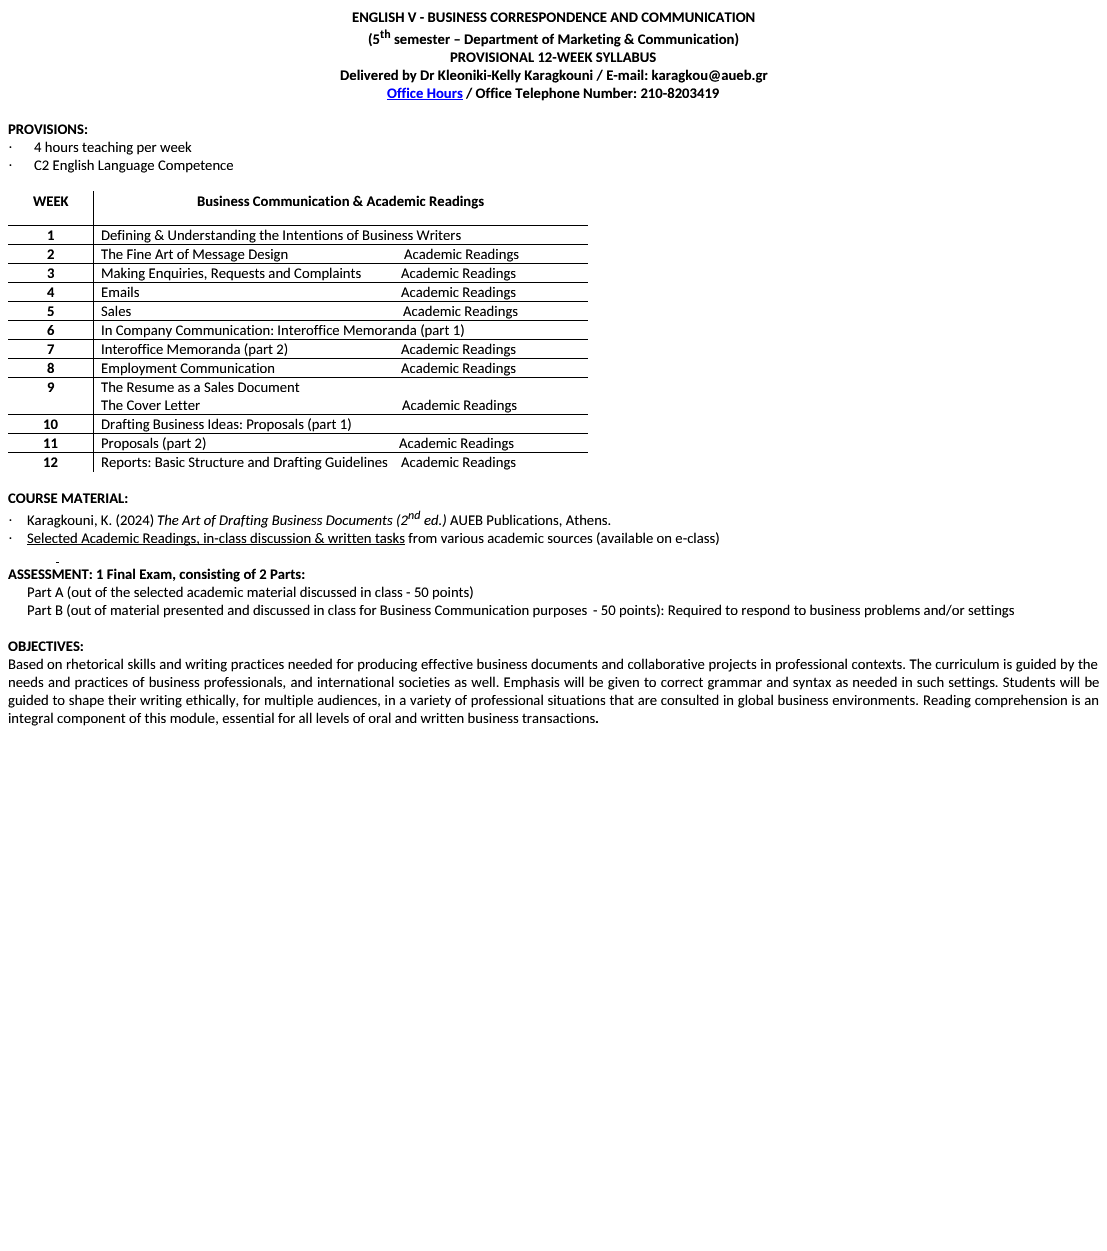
#include "include/core/SkBlurTypes.h"
#include "include/core/SkCanvas.h"
#include "include/core/SkData.h"
#include "include/core/SkFont.h"
#include "include/core/SkFontMgr.h"
#include "include/core/SkImage.h"
#include "include/core/SkMaskFilter.h"
#include "include/core/SkPaint.h"
#include "include/core/SkPathBuilder.h"
#include "include/core/SkTextBlob.h"
#include "include/effects/SkDashPathEffect.h"
#include "include/effects/SkGradientShader.h"
#include "include/utils/SkParsePath.h"

extern sk_sp<SkFontMgr> fontMgr;

void draw(SkCanvas* canvas) {
  SkPaint p;
  p.setAntiAlias(true);
  auto spacedText = [&](const char* s, float x, float y, const SkFont& font, const SkPaint& ink, float letter, float word) {
    std::vector<SkGlyphID> glyphs(font.countText(s, strlen(s), SkTextEncoding::kUTF8));
    std::vector<float> xs(glyphs.size());
    font.textToGlyphs(s, strlen(s), SkTextEncoding::kUTF8, glyphs);
    font.getXPos(glyphs, xs, x);
    float extra = 0;
    for (size_t i = 0; i < glyphs.size(); i++) {
      xs[i] += extra;
      extra += letter + word * (glyphs[i] == font.unicharToGlyph(' '));
    }
    canvas->drawTextBlob(SkTextBlob::MakeFromPosHGlyphs(glyphs, xs, y, font), 0, 0, ink);
  };
  canvas->clear(SK_ColorWHITE);
  p.setColor(SkColorSetRGB(0, 0, 255));
  canvas->drawRect(SkRect::MakeLTRB(387, 99, 463, 100), p);
  p.setColor(SK_ColorBLACK);
  canvas->drawRect(SkRect::MakeLTRB(93, 452, 94, 472), p);
  canvas->drawRect(SkRect::MakeLTRB(93, 452, 588, 453), p);
  canvas->drawRect(SkRect::MakeLTRB(93, 433, 94, 453), p);
  canvas->drawRect(SkRect::MakeLTRB(93, 433, 588, 434), p);
  canvas->drawRect(SkRect::MakeLTRB(93, 414, 94, 434), p);
  canvas->drawRect(SkRect::MakeLTRB(93, 414, 588, 415), p);
  canvas->drawRect(SkRect::MakeLTRB(93, 377, 94, 415), p);
  canvas->drawRect(SkRect::MakeLTRB(93, 377, 588, 378), p);
  canvas->drawRect(SkRect::MakeLTRB(93, 358, 94, 378), p);
  canvas->drawRect(SkRect::MakeLTRB(93, 358, 588, 359), p);
  canvas->drawRect(SkRect::MakeLTRB(93, 339, 94, 359), p);
  canvas->drawRect(SkRect::MakeLTRB(93, 339, 588, 340), p);
  canvas->drawRect(SkRect::MakeLTRB(93, 320, 94, 340), p);
  canvas->drawRect(SkRect::MakeLTRB(93, 320, 588, 321), p);
  canvas->drawRect(SkRect::MakeLTRB(93, 301, 94, 321), p);
  canvas->drawRect(SkRect::MakeLTRB(93, 301, 588, 302), p);
  canvas->drawRect(SkRect::MakeLTRB(93, 282, 94, 302), p);
  canvas->drawRect(SkRect::MakeLTRB(93, 282, 588, 283), p);
  canvas->drawRect(SkRect::MakeLTRB(93, 263, 94, 283), p);
  canvas->drawRect(SkRect::MakeLTRB(93, 263, 588, 264), p);
  canvas->drawRect(SkRect::MakeLTRB(93, 244, 94, 264), p);
  canvas->drawRect(SkRect::MakeLTRB(93, 244, 588, 245), p);
  canvas->drawRect(SkRect::MakeLTRB(93, 225, 94, 245), p);
  canvas->drawRect(SkRect::MakeLTRB(93, 225, 588, 226), p);
  canvas->drawRect(SkRect::MakeLTRB(93, 191, 94, 226), p);
  canvas->drawRect(SkRect::MakeLTRB(8, 225, 94, 226), p);
  canvas->drawRect(SkRect::MakeLTRB(8, 244, 94, 245), p);
  canvas->drawRect(SkRect::MakeLTRB(8, 263, 94, 264), p);
  canvas->drawRect(SkRect::MakeLTRB(8, 282, 94, 283), p);
  canvas->drawRect(SkRect::MakeLTRB(8, 301, 94, 302), p);
  canvas->drawRect(SkRect::MakeLTRB(8, 320, 94, 321), p);
  canvas->drawRect(SkRect::MakeLTRB(8, 339, 94, 340), p);
  canvas->drawRect(SkRect::MakeLTRB(8, 358, 94, 359), p);
  canvas->drawRect(SkRect::MakeLTRB(8, 377, 94, 378), p);
  canvas->drawRect(SkRect::MakeLTRB(8, 414, 94, 415), p);
  canvas->drawRect(SkRect::MakeLTRB(8, 433, 94, 434), p);
  canvas->drawRect(SkRect::MakeLTRB(8, 452, 94, 453), p);
  canvas->drawRect(SkRect::MakeLTRB(27, 544, 405, 545), p);
  canvas->drawRect(SkRect::MakeLTRB(56, 562, 59, 563), p);
  SkFont font1(fontMgr->matchFamilyStyle("Carlito", SkFontStyle::Bold()), 14.67f);
  font1.setSubpixel(true);
  canvas->drawString("ENGLISH V - BUSINESS CORRESPONDENCE AND COMMUNICATION", 352, 22, font1, p);
  canvas->drawString("(5", 368, 44, font1, p);
  SkFont font2(fontMgr->matchFamilyStyle("Carlito", SkFontStyle::Bold()), 12);
  font2.setSubpixel(true);
  canvas->drawString("th", 380, 38, font2, p);
  canvas->drawString("semester – Department of Marketing & Communication)", 394, 44, font1, p);
  canvas->drawString("PROVISIONAL 12-WEEK SYLLABUS", 450, 62, font1, p);
  canvas->drawString("Delivered by Dr Kleoniki-Kelly Karagkouni / E-mail: karagkou@aueb.gr", 340, 80, font1, p);
  p.setColor(SkColorSetRGB(0, 0, 255));
  canvas->drawString("Office Hours", 387, 98, font1, p);
  p.setColor(SK_ColorBLACK);
  canvas->drawString("/ Office Telephone Number: 210-8203419", 466, 98, font1, p);
  canvas->drawString("PROVISIONS:", 8, 134, font1, p);
  SkFont font3(fontMgr->matchFamilyStyle("Liberation Serif", SkFontStyle::Normal()), 14.67f);
  font3.setSubpixel(true);
  canvas->drawString("·", 8, 152, font3, p);
  SkFont font4(fontMgr->matchFamilyStyle("Carlito", SkFontStyle::Normal()), 14.67f);
  font4.setSubpixel(true);
  canvas->drawString("4 hours teaching per week", 34, 152, font4, p);
  canvas->drawString("·", 8, 170, font3, p);
  canvas->drawString("C2 English Language Competence", 34, 170, font4, p);
  canvas->drawString("WEEK", 33, 206, font1, p);
  canvas->drawString("Business Communication & Academic Readings", 197, 206, font1, p);
  canvas->drawString("1", 47, 240, font1, p);
  canvas->drawString("Defining & Understanding the Intentions of Business Writers", 101, 240, font4, p);
  canvas->drawString("2", 47, 259, font1, p);
  canvas->drawString("The Fine Art of Message Design", 101, 259, font4, p);
  canvas->drawString("Academic Readings", 404, 259, font4, p);
  canvas->drawString("3", 47, 278, font1, p);
  canvas->drawString("Making Enquiries, Requests and Complaints", 101, 278, font4, p);
  canvas->drawString("Academic Readings", 401, 278, font4, p);
  canvas->drawString("4", 47, 297, font1, p);
  canvas->drawString("Emails", 101, 297, font4, p);
  canvas->drawString("Academic Readings", 401, 297, font4, p);
  canvas->drawString("5", 47, 316, font1, p);
  canvas->drawString("Sales", 101, 316, font4, p);
  canvas->drawString("Academic Readings", 403, 316, font4, p);
  canvas->drawString("6", 47, 335, font1, p);
  canvas->drawString("In Company Communication: Interoffice Memoranda (part 1)", 101, 335, font4, p);
  canvas->drawString("7", 47, 354, font1, p);
  canvas->drawString("Interoffice Memoranda (part 2)", 101, 354, font4, p);
  canvas->drawString("Academic Readings", 401, 354, font4, p);
  canvas->drawString("8", 47, 373, font1, p);
  canvas->drawString("Employment Communication", 101, 373, font4, p);
  canvas->drawString("Academic Readings", 401, 373, font4, p);
  canvas->drawString("9", 47, 392, font1, p);
  canvas->drawString("The Resume as a Sales Document", 101, 392, font4, p);
  canvas->drawString("The Cover Letter", 101, 410, font4, p);
  canvas->drawString("Academic Readings", 402, 410, font4, p);
  canvas->drawString("10", 43, 429, font1, p);
  canvas->drawString("Drafting Business Ideas: Proposals (part 1)", 101, 429, font4, p);
  canvas->drawString("11", 43, 448, font1, p);
  canvas->drawString("Proposals (part 2)", 101, 448, font4, p);
  canvas->drawString("Academic Readings", 399, 448, font4, p);
  canvas->drawString("12", 43, 467, font1, p);
  canvas->drawString("Reports: Basic Structure and Drafting Guidelines", 101, 467, font4, p);
  canvas->drawString("Academic Readings", 401, 467, font4, p);
  canvas->drawString("COURSE MATERIAL:", 8, 503, font1, p);
  canvas->drawString("·", 8, 525, font3, p);
  canvas->drawString("Karagkouni, K. (2024)", 27, 525, font4, p);
  SkFont font5(fontMgr->matchFamilyStyle("Carlito", SkFontStyle::Italic()), 14.67f);
  font5.setSubpixel(true);
  canvas->drawString("The Art of Drafting Business Documents (2", 157, 525, font5, p);
  SkFont font6(fontMgr->matchFamilyStyle("Carlito", SkFontStyle::Italic()), 12);
  font6.setSubpixel(true);
  canvas->drawString("nd", 408, 519, font6, p);
  canvas->drawString("ed.)", 424, 525, font5, p);
  canvas->drawString("AUEB Publications, Athens.", 450, 525, font4, p);
  canvas->drawString("·", 8, 543, font3, p);
  canvas->drawString("Selected Academic Readings, in-class discussion & written tasks from various academic sources (available on e-class)", 27, 543, font4, p);
  canvas->drawString("ASSESSMENT: 1 Final Exam, consisting of 2 Parts:", 8, 579, font1, p);
  canvas->drawString("Part A (out of the selected academic material discussed in class - 50 points)", 27, 597, font4, p);
  canvas->drawString("Part B (out of material presented and discussed in class for Business Communication purposes", 27, 615, font4, p);
  canvas->drawString("- 50 points): Required to respond to business problems and/or settings", 593, 615, font4, p);
  canvas->drawString("OBJECTIVES:", 8, 651, font1, p);
  canvas->drawString("Based", 8, 669, font4, p);
  spacedText("on rhetorical skills and writing practices needed for producing effective business documents and collaborative projects in professional contexts. The curriculum is guided by the", 47, 669, font4, p, 0, 0.25f);
  spacedText("needs and practices of business professionals, and international societies as well. Emphasis will be given to correct grammar and syntax as needed in such settings. Students will be", 8, 687, font4, p, 0, 0.85f);
  spacedText("guided to shape their writing ethically, for multiple audiences, in a variety of professional situations that are consulted in global business environments.", 8, 705, font4, p, 0, 0.4f);
  spacedText("Reading comprehension is an", 923, 705, font4, p, 0, 0.4f);
  canvas->drawString("integral component of this module, essential for all levels of oral and written business transactions", 8, 723, font4, p);
  canvas->drawString(".", 595, 723, font1, p);
}
